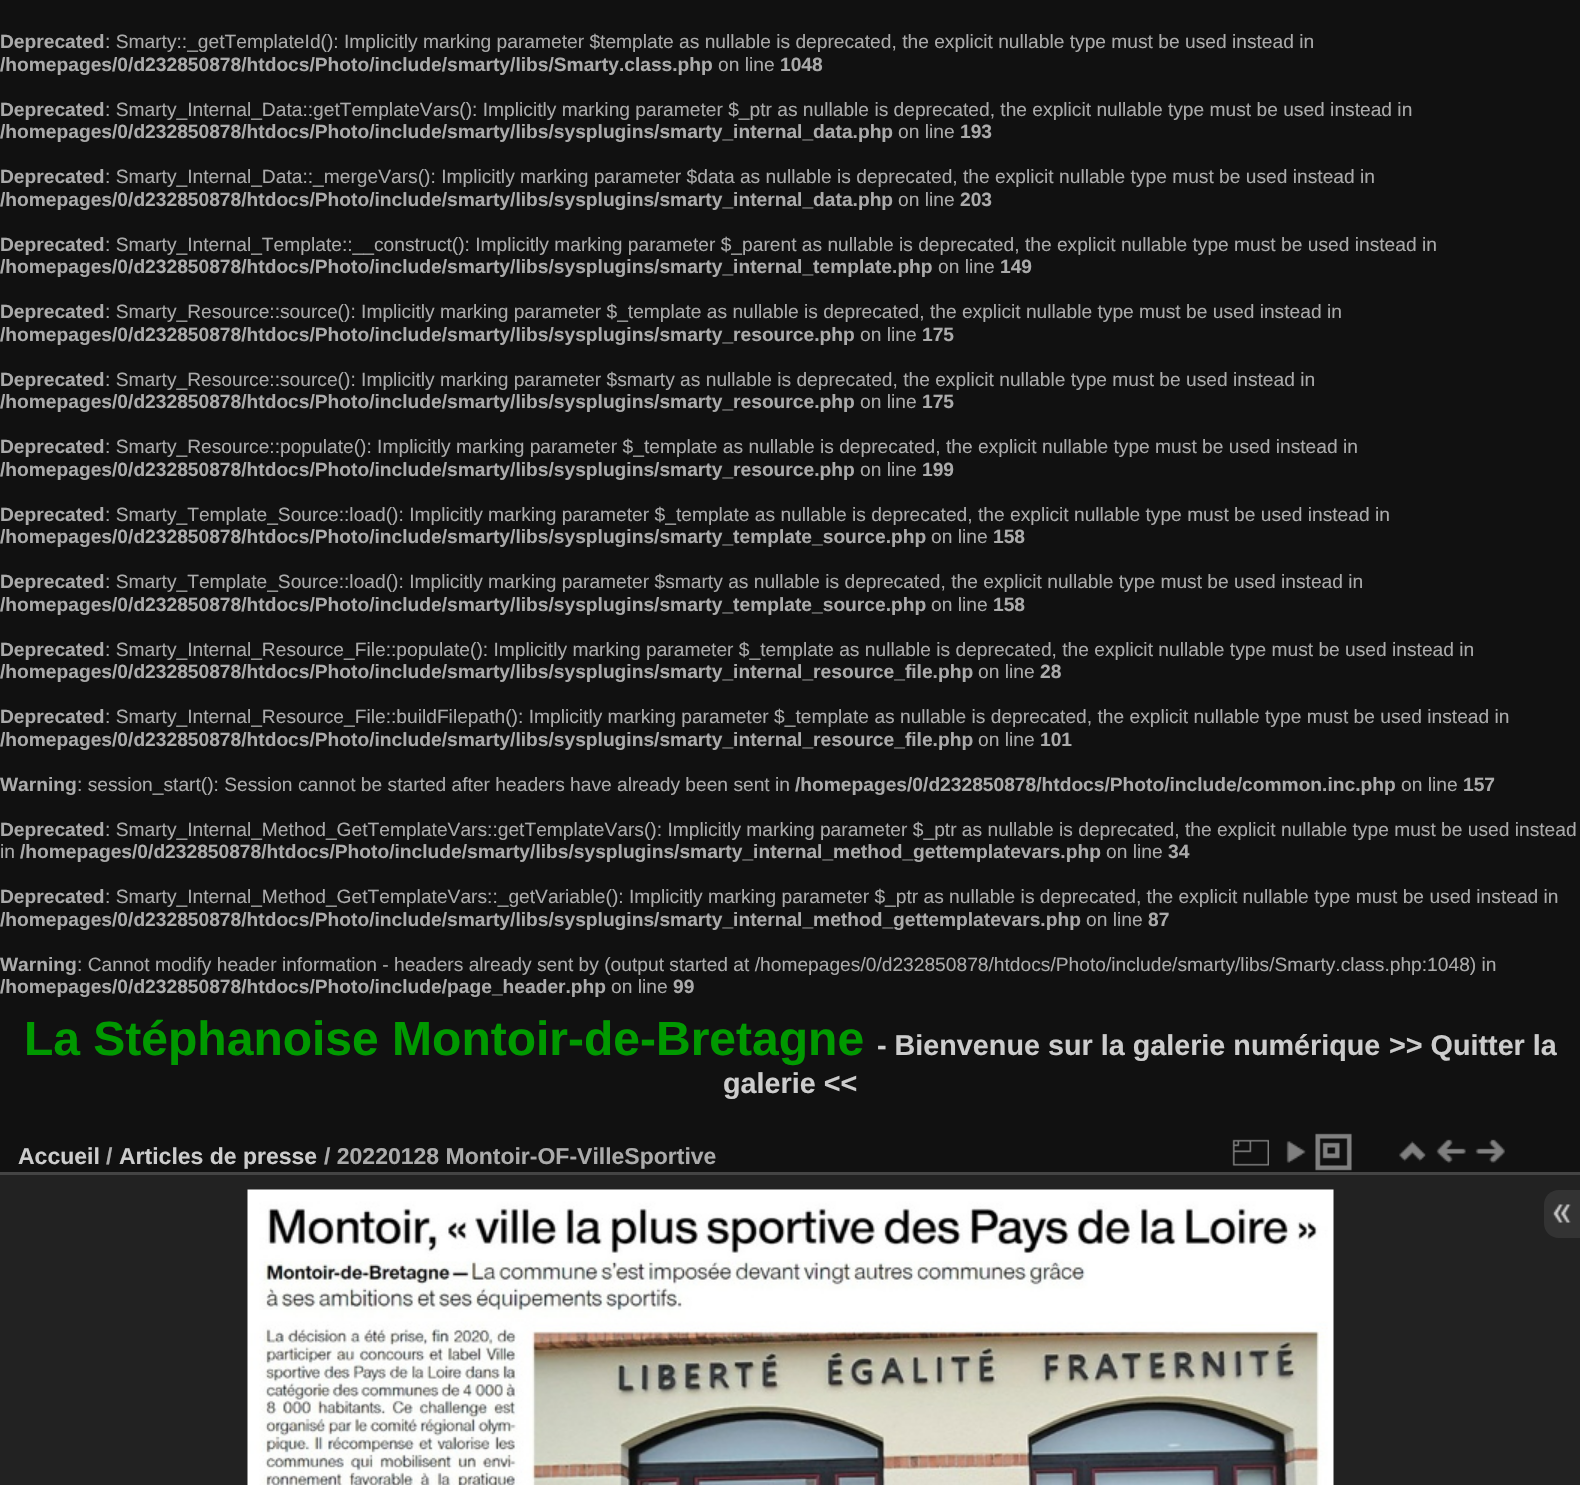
#include "include/core/SkBlurTypes.h"
#include "include/core/SkCanvas.h"
#include "include/core/SkData.h"
#include "include/core/SkFont.h"
#include "include/core/SkFontMgr.h"
#include "include/core/SkImage.h"
#include "include/core/SkMaskFilter.h"
#include "include/core/SkPaint.h"
#include "include/core/SkPathBuilder.h"
#include "include/core/SkTextBlob.h"
#include "include/effects/SkDashPathEffect.h"
#include "include/effects/SkGradientShader.h"
#include "include/utils/SkParsePath.h"

extern sk_sp<SkFontMgr> fontMgr;

void draw(SkCanvas* canvas) {
  SkPaint p;
  p.setAntiAlias(true);
  canvas->clear(SkColorSetRGB(17, 17, 17));
  p.setColor(SkColorSetRGB(34, 34, 34));
  canvas->drawRect(SkRect::MakeLTRB(0, 1175, 1580, 1485), p);
  p.setColor(SkColorSetRGB(68, 68, 68));
  canvas->drawRect(SkRect::MakeLTRB(0, 1172, 1580, 1175), p);
  canvas->drawImageRect(SkImages::DeferredFromEncodedData(SkData::MakeFromFileName("images/1.png")), SkRect::MakeLTRB(1232, 1139, 1269, 1166), SkSamplingOptions());
  canvas->drawImageRect(SkImages::DeferredFromEncodedData(SkData::MakeFromFileName("images/2.png")), SkRect::MakeLTRB(1286, 1141, 1306, 1163), SkSamplingOptions());
  canvas->drawImageRect(SkImages::DeferredFromEncodedData(SkData::MakeFromFileName("images/3.png")), SkRect::MakeLTRB(1315, 1133, 1352, 1171), SkSamplingOptions());
  canvas->drawImageRect(SkImages::DeferredFromEncodedData(SkData::MakeFromFileName("images/4.png")), SkRect::MakeLTRB(1399, 1141, 1426, 1162), SkSamplingOptions());
  canvas->drawImageRect(SkImages::DeferredFromEncodedData(SkData::MakeFromFileName("images/5.png")), SkRect::MakeLTRB(1436, 1139, 1466, 1163), SkSamplingOptions());
  canvas->drawImageRect(SkImages::DeferredFromEncodedData(SkData::MakeFromFileName("images/6.png")), SkRect::MakeLTRB(1475, 1139, 1505, 1163), SkSamplingOptions());
  canvas->drawImageRect(SkImages::DeferredFromEncodedData(SkData::MakeFromFileName("images/7.png")), SkRect::MakeLTRB(247, 1189, 1334, 1485), SkSamplingOptions());
  p.setColor(SkColorSetRGB(51, 51, 51));
  canvas->drawPath(SkPathBuilder().moveTo(1559, 1190).lineTo(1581, 1190).lineTo(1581, 1238).lineTo(1559, 1238).cubicTo(1550.5f, 1238, 1544, 1231.5f, 1544, 1223).lineTo(1544, 1205).cubicTo(1544, 1196.5f, 1550.5f, 1190, 1559, 1190).close().detach(), p);
  canvas->drawImageRect(SkImages::DeferredFromEncodedData(SkData::MakeFromFileName("images/8.png")), SkRect::MakeLTRB(1552, 1204, 1571, 1223), SkSamplingOptions());
  SkFont font1(fontMgr->matchFamilyStyle("Liberation Sans", SkFontStyle::Bold()), 19.2f);
  font1.setSubpixel(true);
  p.setColor(SkColorSetRGB(170, 170, 170));
  canvas->drawString("Deprecated", 0, 48, font1, p);
  SkFont font2(fontMgr->matchFamilyStyle("Liberation Sans", SkFontStyle::Normal()), 19.2f);
  font2.setSubpixel(true);
  canvas->drawString(": Smarty::_getTemplateId(): Implicitly marking parameter $template as nullable is deprecated, the explicit nullable type must be used instead in", 105, 48, font2, p);
  canvas->drawString("/homepages/0/d232850878/htdocs/Photo/include/smarty/libs/Smarty.class.php", 0, 71, font1, p);
  canvas->drawString("on line", 718, 71, font2, p);
  canvas->drawString("1048", 780, 71, font1, p);
  canvas->drawString("Deprecated", 0, 116, font1, p);
  canvas->drawString(": Smarty_Internal_Data::getTemplateVars(): Implicitly marking parameter $_ptr as nullable is deprecated, the explicit nullable type must be used instead in", 105, 116, font2, p);
  canvas->drawString("/homepages/0/d232850878/htdocs/Photo/include/smarty/libs/sysplugins/smarty_internal_data.php", 0, 138, font1, p);
  canvas->drawString("on line", 898, 138, font2, p);
  canvas->drawString("193", 960, 138, font1, p);
  canvas->drawString("Deprecated", 0, 183, font1, p);
  canvas->drawString(": Smarty_Internal_Data::_mergeVars(): Implicitly marking parameter $data as nullable is deprecated, the explicit nullable type must be used instead in", 105, 183, font2, p);
  canvas->drawString("/homepages/0/d232850878/htdocs/Photo/include/smarty/libs/sysplugins/smarty_internal_data.php", 0, 206, font1, p);
  canvas->drawString("on line", 898, 206, font2, p);
  canvas->drawString("203", 960, 206, font1, p);
  canvas->drawString("Deprecated", 0, 251, font1, p);
  canvas->drawString(": Smarty_Internal_Template::__construct(): Implicitly marking parameter $_parent as nullable is deprecated, the explicit nullable type must be used instead in", 105, 251, font2, p);
  canvas->drawString("/homepages/0/d232850878/htdocs/Photo/include/smarty/libs/sysplugins/smarty_internal_template.php", 0, 273, font1, p);
  canvas->drawString("on line", 938, 273, font2, p);
  canvas->drawString("149", 1000, 273, font1, p);
  canvas->drawString("Deprecated", 0, 318, font1, p);
  canvas->drawString(": Smarty_Resource::source(): Implicitly marking parameter $_template as nullable is deprecated, the explicit nullable type must be used instead in", 105, 318, font2, p);
  canvas->drawString("/homepages/0/d232850878/htdocs/Photo/include/smarty/libs/sysplugins/smarty_resource.php", 0, 341, font1, p);
  canvas->drawString("on line", 860, 341, font2, p);
  canvas->drawString("175", 922, 341, font1, p);
  canvas->drawString("Deprecated", 0, 386, font1, p);
  canvas->drawString(": Smarty_Resource::source(): Implicitly marking parameter $smarty as nullable is deprecated, the explicit nullable type must be used instead in", 105, 386, font2, p);
  canvas->drawString("/homepages/0/d232850878/htdocs/Photo/include/smarty/libs/sysplugins/smarty_resource.php", 0, 408, font1, p);
  canvas->drawString("on line", 860, 408, font2, p);
  canvas->drawString("175", 922, 408, font1, p);
  canvas->drawString("Deprecated", 0, 453, font1, p);
  canvas->drawString(": Smarty_Resource::populate(): Implicitly marking parameter $_template as nullable is deprecated, the explicit nullable type must be used instead in", 105, 453, font2, p);
  canvas->drawString("/homepages/0/d232850878/htdocs/Photo/include/smarty/libs/sysplugins/smarty_resource.php", 0, 476, font1, p);
  canvas->drawString("on line", 860, 476, font2, p);
  canvas->drawString("199", 922, 476, font1, p);
  canvas->drawString("Deprecated", 0, 521, font1, p);
  canvas->drawString(": Smarty_Template_Source::load(): Implicitly marking parameter $_template as nullable is deprecated, the explicit nullable type must be used instead in", 105, 521, font2, p);
  canvas->drawString("/homepages/0/d232850878/htdocs/Photo/include/smarty/libs/sysplugins/smarty_template_source.php", 0, 543, font1, p);
  canvas->drawString("on line", 931, 543, font2, p);
  canvas->drawString("158", 993, 543, font1, p);
  canvas->drawString("Deprecated", 0, 588, font1, p);
  canvas->drawString(": Smarty_Template_Source::load(): Implicitly marking parameter $smarty as nullable is deprecated, the explicit nullable type must be used instead in", 105, 588, font2, p);
  canvas->drawString("/homepages/0/d232850878/htdocs/Photo/include/smarty/libs/sysplugins/smarty_template_source.php", 0, 611, font1, p);
  canvas->drawString("on line", 931, 611, font2, p);
  canvas->drawString("158", 993, 611, font1, p);
  canvas->drawString("Deprecated", 0, 656, font1, p);
  canvas->drawString(": Smarty_Internal_Resource_File::populate(): Implicitly marking parameter $_template as nullable is deprecated, the explicit nullable type must be used instead in", 105, 656, font2, p);
  canvas->drawString("/homepages/0/d232850878/htdocs/Photo/include/smarty/libs/sysplugins/smarty_internal_resource_file.php", 0, 678, font1, p);
  canvas->drawString("on line", 978, 678, font2, p);
  canvas->drawString("28", 1040, 678, font1, p);
  canvas->drawString("Deprecated", 0, 723, font1, p);
  canvas->drawString(": Smarty_Internal_Resource_File::buildFilepath(): Implicitly marking parameter $_template as nullable is deprecated, the explicit nullable type must be used instead in", 105, 723, font2, p);
  canvas->drawString("/homepages/0/d232850878/htdocs/Photo/include/smarty/libs/sysplugins/smarty_internal_resource_file.php", 0, 746, font1, p);
  canvas->drawString("on line", 978, 746, font2, p);
  canvas->drawString("101", 1040, 746, font1, p);
  canvas->drawString("Warning", 0, 791, font1, p);
  canvas->drawString(": session_start(): Session cannot be started after headers have already been sent in", 77, 791, font2, p);
  canvas->drawString("/homepages/0/d232850878/htdocs/Photo/include/common.inc.php", 795, 791, font1, p);
  canvas->drawString("on line", 1401, 791, font2, p);
  canvas->drawString("157", 1463, 791, font1, p);
  canvas->drawString("Deprecated", 0, 836, font1, p);
  canvas->drawString(": Smarty_Internal_Method_GetTemplateVars::getTemplateVars(): Implicitly marking parameter $_ptr as nullable is deprecated, the explicit nullable type must be used instead", 105, 836, font2, p);
  canvas->drawString("in", 0, 858, font2, p);
  canvas->drawString("/homepages/0/d232850878/htdocs/Photo/include/smarty/libs/sysplugins/smarty_internal_method_gettemplatevars.php", 20, 858, font1, p);
  canvas->drawString("on line", 1106, 858, font2, p);
  canvas->drawString("34", 1168, 858, font1, p);
  canvas->drawString("Deprecated", 0, 903, font1, p);
  canvas->drawString(": Smarty_Internal_Method_GetTemplateVars::_getVariable(): Implicitly marking parameter $_ptr as nullable is deprecated, the explicit nullable type must be used instead in", 105, 903, font2, p);
  canvas->drawString("/homepages/0/d232850878/htdocs/Photo/include/smarty/libs/sysplugins/smarty_internal_method_gettemplatevars.php", 0, 926, font1, p);
  canvas->drawString("on line", 1086, 926, font2, p);
  canvas->drawString("87", 1148, 926, font1, p);
  canvas->drawString("Warning", 0, 971, font1, p);
  canvas->drawString(": Cannot modify header information - headers already sent by (output started at /homepages/0/d232850878/htdocs/Photo/include/smarty/libs/Smarty.class.php:1048) in", 77, 971, font2, p);
  canvas->drawString("/homepages/0/d232850878/htdocs/Photo/include/page_header.php", 0, 993, font1, p);
  canvas->drawString("on line", 611, 993, font2, p);
  canvas->drawString("99", 673, 993, font1, p);
  SkFont font3(fontMgr->matchFamilyStyle("Liberation Sans", SkFontStyle::Bold()), 48);
  font3.setSubpixel(true);
  p.setColor(SkColorSetRGB(0, 153, 0));
  canvas->drawString("La Stéphanoise Montoir-de-Bretagne", 24, 1055, font3, p);
  SkFont font4(fontMgr->matchFamilyStyle("Liberation Sans", SkFontStyle::Bold()), 28.75f);
  font4.setSubpixel(true);
  p.setColor(SkColorSetRGB(204, 204, 204));
  canvas->drawString("- Bienvenue sur la galerie numérique", 877, 1055, font4, p);
  canvas->drawString(">> Quitter la", 1389, 1055, font4, p);
  canvas->drawString("galerie <<", 723, 1093, font4, p);
  SkFont font5(fontMgr->matchFamilyStyle("Liberation Sans", SkFontStyle::Bold()), 23);
  font5.setSubpixel(true);
  canvas->drawString("Accueil", 18, 1164, font5, p);
  p.setColor(SkColorSetRGB(170, 170, 170));
  canvas->drawString("/", 106, 1164, font5, p);
  p.setColor(SkColorSetRGB(204, 204, 204));
  canvas->drawString("Articles de presse", 119, 1164, font5, p);
  p.setColor(SkColorSetRGB(170, 170, 170));
  canvas->drawString("/ 20220128 Montoir-OF-VilleSportive", 324, 1164, font5, p);
}
